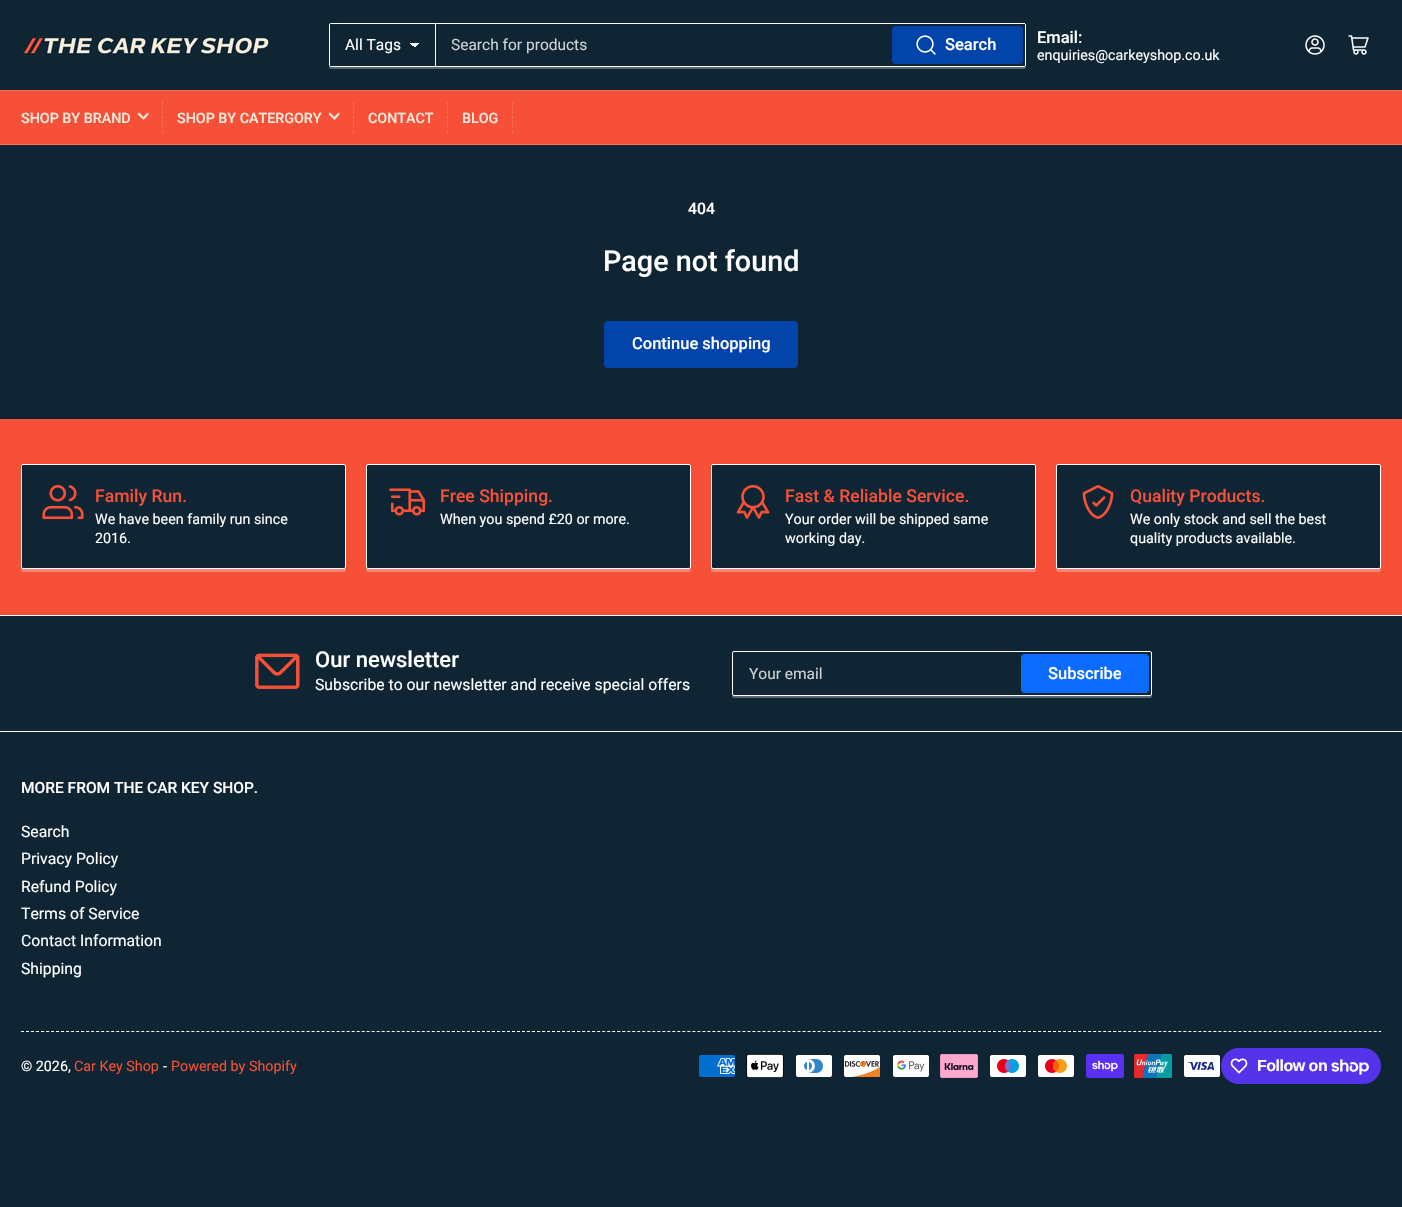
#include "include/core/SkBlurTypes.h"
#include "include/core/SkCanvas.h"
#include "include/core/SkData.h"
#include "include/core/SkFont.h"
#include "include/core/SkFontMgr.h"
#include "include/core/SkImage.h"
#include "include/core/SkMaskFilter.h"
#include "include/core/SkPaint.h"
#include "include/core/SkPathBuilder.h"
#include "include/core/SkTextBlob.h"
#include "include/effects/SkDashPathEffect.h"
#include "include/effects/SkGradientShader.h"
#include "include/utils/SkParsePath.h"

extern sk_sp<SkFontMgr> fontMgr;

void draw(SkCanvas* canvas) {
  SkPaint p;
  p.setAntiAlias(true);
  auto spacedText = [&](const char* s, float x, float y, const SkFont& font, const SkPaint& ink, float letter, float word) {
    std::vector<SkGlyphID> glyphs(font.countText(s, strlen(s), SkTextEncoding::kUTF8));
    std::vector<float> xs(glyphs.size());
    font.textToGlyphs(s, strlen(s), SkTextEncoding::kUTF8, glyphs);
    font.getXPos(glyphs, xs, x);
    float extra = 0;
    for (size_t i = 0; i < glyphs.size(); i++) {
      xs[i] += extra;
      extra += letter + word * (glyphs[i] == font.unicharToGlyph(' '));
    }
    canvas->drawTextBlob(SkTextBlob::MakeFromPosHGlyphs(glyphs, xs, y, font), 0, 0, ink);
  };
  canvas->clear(SkColorSetRGB(15, 37, 51));
  canvas->drawImageRect(SkImages::DeferredFromEncodedData(SkData::MakeFromFileName("images/1.png")), SkRect::MakeLTRB(21, 35, 271, 59), SkSamplingOptions());
  p.setStyle(SkPaint::kStroke_Style);
  p.setStrokeWidth(1);
  p.setColor(SK_ColorWHITE);
  canvas->drawRoundRect(SkRect::MakeLTRB(329.5f, 23.5f, 435.5f, 66.5f), 1.5f, 1.5f, p);
  p.setStyle(SkPaint::kFill_Style);
  p.setColor(SkColorSetARGB(77, 255, 255, 255));
  canvas->drawPath(SkPathBuilder().moveTo(329, 65).lineTo(329, 67).cubicTo(329, 68, 330, 69, 331, 69).lineTo(436, 69).lineTo(436, 67).lineTo(331, 67).cubicTo(330, 67, 329, 66, 329, 65).close().detach(), p);
  p.setColor(SkColorSetRGB(15, 37, 51));
  canvas->drawPath(SkPathBuilder().moveTo(331, 23).lineTo(436, 23).lineTo(436, 67).lineTo(331, 67).cubicTo(330, 67, 329, 66, 329, 65).lineTo(329, 25).cubicTo(329, 24, 330, 23, 331, 23).close().detach(), p);
  {
    const SkColor colors[] = {SK_ColorWHITE, SkColorSetRGB(15, 37, 51)};
    const float stops[] = {0.5f, 0.5f};
    const SkPoint ends[] = {{415, 43}, {420, 48}};
    p.setShader(SkGradientShader::MakeLinear(ends, colors, stops, 2, SkTileMode::kClamp));
    p.setAlpha(255);
  }
  canvas->drawRect(SkRect::MakeLTRB(415, 43, 420, 47), p);
  {
    const SkColor colors[] = {SkColorSetRGB(15, 37, 51), SK_ColorWHITE};
    const float stops[] = {0.5f, 0.5f};
    const SkPoint ends[] = {{410, 48}, {415, 43}};
    p.setShader(SkGradientShader::MakeLinear(ends, colors, stops, 2, SkTileMode::kClamp));
    p.setAlpha(255);
  }
  canvas->drawRect(SkRect::MakeLTRB(410, 43, 415, 47), p);
  p.setStyle(SkPaint::kStroke_Style);
  p.setShader(nullptr);
  p.setColor(SK_ColorWHITE);
  canvas->drawPath(SkPathBuilder().moveTo(331, 23.5f).lineTo(435.5f, 23.5f).lineTo(435.5f, 66.5f).lineTo(331, 66.5f).cubicTo(330, 66.5f, 329.5f, 66, 329.5f, 65).lineTo(329.5f, 25).cubicTo(329.5f, 24, 330, 23.5f, 331, 23.5f).close().detach(), p);
  p.setStyle(SkPaint::kFill_Style);
  p.setColor(SkColorSetRGB(87, 102, 112));
  canvas->drawPath(SkPathBuilder().moveTo(436, 67).lineTo(436, 69).lineTo(1024, 69).lineTo(1026, 68).lineTo(1026, 65).cubicTo(1026, 66, 1025, 67, 1024, 67).close().detach(), p);
  p.setColor(SkColorSetRGB(15, 37, 51));
  canvas->drawPath(SkPathBuilder().moveTo(436, 23).lineTo(1024, 23).cubicTo(1025, 23, 1026, 24, 1026, 25).lineTo(1026, 65).cubicTo(1026, 66, 1025, 67, 1024, 67).lineTo(436, 67).close().detach(), p);
  p.setColor(SK_ColorWHITE);
  canvas->drawRect(SkRect::MakeLTRB(436, 23, 1025, 24), p);
  canvas->drawRect(SkRect::MakeLTRB(1025, 24, 1026, 66), p);
  canvas->drawRect(SkRect::MakeLTRB(436, 66, 1025, 67), p);
  p.setStyle(SkPaint::kStroke_Style);
  p.setColor(SkColorSetRGB(2, 68, 169));
  canvas->drawRoundRect(SkRect::MakeLTRB(892.5f, 26.5f, 1022.5f, 63.5f), 2.5f, 2.5f, p);
  p.setStyle(SkPaint::kFill_Style);
  canvas->drawRoundRect(SkRect::MakeLTRB(893, 27, 1022, 63), 2, 2, p);
  canvas->drawImageRect(SkImages::DeferredFromEncodedData(SkData::MakeFromFileName("images/2.png")), SkRect::MakeLTRB(916, 35, 936, 55), SkSamplingOptions());
  canvas->drawImageRect(SkImages::DeferredFromEncodedData(SkData::MakeFromFileName("images/3.png")), SkRect::MakeLTRB(1305, 35, 1325, 55), SkSamplingOptions());
  canvas->drawImageRect(SkImages::DeferredFromEncodedData(SkData::MakeFromFileName("images/4.png")), SkRect::MakeLTRB(1348, 35, 1369, 55), SkSamplingOptions());
  p.setColor(SkColorSetRGB(247, 80, 56));
  canvas->drawRect(SkRect::MakeLTRB(0, 91, 1402, 144), p);
  p.setColor(SkColorSetRGB(246, 111, 89));
  canvas->drawRect(SkRect::MakeLTRB(0, 90, 1402, 91), p);
  canvas->drawRect(SkRect::MakeLTRB(0, 144, 1402, 145), p);
  p.setStyle(SkPaint::kStroke_Style);
  p.setStrokeWidth(2.1f);
  p.setStrokeCap(SkPaint::kSquare_Cap);
  p.setColor(SkColorSetRGB(241, 235, 220));
  canvas->drawPath(SkPathBuilder().moveTo(147.5f, 114).lineTo(143.5f, 118.5f).lineTo(139, 114).detach(), p);
  p.setStrokeWidth(1);
  p.setStrokeCap(SkPaint::kButt_Cap);
  p.setColor(SkColorSetRGB(246, 111, 89));
  p.setPathEffect(SkDashPathEffect::Make({{3, 1.67f}}, 0));
  canvas->drawPath(SkPathBuilder().moveTo(162.5f, 102).lineTo(162.5f, 133).detach(), p);
  p.setPathEffect(nullptr);
  p.setStrokeWidth(2.1f);
  p.setStrokeCap(SkPaint::kSquare_Cap);
  p.setColor(SkColorSetRGB(241, 235, 220));
  canvas->drawPath(SkPathBuilder().moveTo(338.5f, 114).lineTo(334.5f, 118.5f).lineTo(330, 114).detach(), p);
  p.setStrokeWidth(1);
  p.setStrokeCap(SkPaint::kButt_Cap);
  p.setColor(SkColorSetRGB(246, 111, 89));
  p.setPathEffect(SkDashPathEffect::Make({{3, 1.67f}}, 0));
  canvas->drawPath(SkPathBuilder().moveTo(353.5f, 102).lineTo(353.5f, 133).detach(), p);
  p.setPathEffect(nullptr);
  p.setPathEffect(SkDashPathEffect::Make({{3, 1.67f}}, 0));
  canvas->drawPath(SkPathBuilder().moveTo(447.5f, 102).lineTo(447.5f, 133).detach(), p);
  p.setPathEffect(nullptr);
  p.setPathEffect(SkDashPathEffect::Make({{3, 1.67f}}, 0));
  canvas->drawPath(SkPathBuilder().moveTo(512.5f, 102).lineTo(512.5f, 133).detach(), p);
  p.setPathEffect(nullptr);
  p.setColor(SkColorSetRGB(2, 68, 169));
  canvas->drawRoundRect(SkRect::MakeLTRB(604.5f, 321.5f, 797.5f, 367.5f), 2.5f, 2.5f, p);
  p.setStyle(SkPaint::kFill_Style);
  canvas->drawRoundRect(SkRect::MakeLTRB(605, 322, 797, 367), 2, 2, p);
  p.setColor(SkColorSetRGB(247, 80, 56));
  canvas->drawRect(SkRect::MakeLTRB(0, 419, 1402, 615), p);
  p.setColor(SkColorSetRGB(249, 133, 116));
  canvas->drawPath(SkPathBuilder().moveTo(21, 567).lineTo(21, 570).cubicTo(21, 571, 22, 572, 23, 572).lineTo(344, 572).cubicTo(345, 572, 346, 571, 346, 570).lineTo(346, 567).cubicTo(346, 568, 345, 569, 344, 569).lineTo(23, 569).cubicTo(22, 569, 21, 568, 21, 567).close().detach(), p);
  p.setColor(SkColorSetRGB(15, 37, 51));
  canvas->drawRoundRect(SkRect::MakeLTRB(21.5f, 464.5f, 345.5f, 568.5f), 1.5f, 1.5f, p);
  p.setStyle(SkPaint::kStroke_Style);
  p.setColor(SK_ColorWHITE);
  canvas->drawRoundRect(SkRect::MakeLTRB(21.5f, 464.5f, 345.5f, 568.5f), 1.5f, 1.5f, p);
  canvas->drawImageRect(SkImages::DeferredFromEncodedData(SkData::MakeFromFileName("images/5.png")), SkRect::MakeLTRB(42, 484, 84, 520), SkSamplingOptions());
  p.setStyle(SkPaint::kFill_Style);
  p.setColor(SkColorSetRGB(249, 133, 116));
  canvas->drawPath(SkPathBuilder().moveTo(366, 567).lineTo(366, 570).cubicTo(366, 571, 367, 572, 368, 572).lineTo(689, 572).cubicTo(690, 572, 691, 571, 691, 570).lineTo(691, 567).cubicTo(691, 568, 690, 569, 689, 569).lineTo(368, 569).cubicTo(367, 569, 366, 568, 366, 567).close().detach(), p);
  p.setColor(SkColorSetRGB(15, 37, 51));
  canvas->drawRoundRect(SkRect::MakeLTRB(366.5f, 464.5f, 690.5f, 568.5f), 1.5f, 1.5f, p);
  p.setStyle(SkPaint::kStroke_Style);
  p.setColor(SK_ColorWHITE);
  canvas->drawRoundRect(SkRect::MakeLTRB(366.5f, 464.5f, 690.5f, 568.5f), 1.5f, 1.5f, p);
  canvas->drawImageRect(SkImages::DeferredFromEncodedData(SkData::MakeFromFileName("images/6.png")), SkRect::MakeLTRB(389, 488, 426, 516), SkSamplingOptions());
  p.setStyle(SkPaint::kFill_Style);
  p.setColor(SkColorSetRGB(249, 133, 116));
  canvas->drawPath(SkPathBuilder().moveTo(711, 567).lineTo(711, 570).cubicTo(711, 571, 712, 572, 713, 572).lineTo(1034, 572).cubicTo(1035, 572, 1036, 571, 1036, 570).lineTo(1036, 567).cubicTo(1036, 568, 1035, 569, 1034, 569).lineTo(713, 569).cubicTo(712, 569, 711, 568, 711, 567).close().detach(), p);
  p.setColor(SkColorSetRGB(15, 37, 51));
  canvas->drawRoundRect(SkRect::MakeLTRB(711.5f, 464.5f, 1035.5f, 568.5f), 1.5f, 1.5f, p);
  p.setStyle(SkPaint::kStroke_Style);
  p.setColor(SK_ColorWHITE);
  canvas->drawRoundRect(SkRect::MakeLTRB(711.5f, 464.5f, 1035.5f, 568.5f), 1.5f, 1.5f, p);
  canvas->drawImageRect(SkImages::DeferredFromEncodedData(SkData::MakeFromFileName("images/7.png")), SkRect::MakeLTRB(736, 485, 770, 519), SkSamplingOptions());
  p.setStyle(SkPaint::kFill_Style);
  p.setColor(SkColorSetRGB(249, 133, 116));
  canvas->drawPath(SkPathBuilder().moveTo(1056, 567).lineTo(1056, 570).cubicTo(1056, 571, 1057, 572, 1058, 572).lineTo(1379, 572).cubicTo(1380, 572, 1381, 571, 1381, 570).lineTo(1381, 567).cubicTo(1381, 568, 1380, 569, 1379, 569).lineTo(1058, 569).cubicTo(1057, 569, 1056, 568, 1056, 567).close().detach(), p);
  p.setColor(SkColorSetRGB(15, 37, 51));
  canvas->drawRoundRect(SkRect::MakeLTRB(1056.5f, 464.5f, 1380.5f, 568.5f), 1.5f, 1.5f, p);
  p.setStyle(SkPaint::kStroke_Style);
  p.setColor(SK_ColorWHITE);
  canvas->drawRoundRect(SkRect::MakeLTRB(1056.5f, 464.5f, 1380.5f, 568.5f), 1.5f, 1.5f, p);
  canvas->drawImageRect(SkImages::DeferredFromEncodedData(SkData::MakeFromFileName("images/8.png")), SkRect::MakeLTRB(1082, 485, 1114, 519), SkSamplingOptions());
  p.setStyle(SkPaint::kFill_Style);
  canvas->drawRect(SkRect::MakeLTRB(0, 615, 1402, 616), p);
  canvas->drawRect(SkRect::MakeLTRB(0, 731, 1402, 732), p);
  canvas->drawImageRect(SkImages::DeferredFromEncodedData(SkData::MakeFromFileName("images/9.png")), SkRect::MakeLTRB(255, 653, 300, 689), SkSamplingOptions());
  p.setColor(SkColorSetRGB(87, 102, 112));
  canvas->drawPath(SkPathBuilder().moveTo(732, 694).lineTo(732, 697).lineTo(734, 698).lineTo(1150, 698).cubicTo(1152, 698, 1152, 696, 1152, 694).cubicTo(1152, 695, 1151, 696, 1150, 696).lineTo(734, 696).cubicTo(733, 696, 732, 695, 732, 694).close().detach(), p);
  p.setColor(SkColorSetRGB(15, 37, 51));
  canvas->drawRoundRect(SkRect::MakeLTRB(732.5f, 651.5f, 1151.5f, 695.5f), 1.5f, 1.5f, p);
  p.setStyle(SkPaint::kStroke_Style);
  p.setColor(SK_ColorWHITE);
  canvas->drawRoundRect(SkRect::MakeLTRB(732.5f, 651.5f, 1151.5f, 695.5f), 1.5f, 1.5f, p);
  p.setColor(SkColorSetRGB(11, 108, 255));
  canvas->drawRoundRect(SkRect::MakeLTRB(1021.5f, 654.5f, 1148.5f, 692.5f), 2.5f, 2.5f, p);
  p.setStyle(SkPaint::kFill_Style);
  canvas->drawRoundRect(SkRect::MakeLTRB(1022, 655, 1148, 692), 2, 2, p);
  p.setStyle(SkPaint::kStroke_Style);
  p.setColor(SK_ColorWHITE);
  p.setPathEffect(SkDashPathEffect::Make({{3, 2.01f}}, 0));
  canvas->drawPath(SkPathBuilder().moveTo(21, 1031.5f).lineTo(1381, 1031.5f).detach(), p);
  p.setPathEffect(nullptr);
  canvas->drawImageRect(SkImages::DeferredFromEncodedData(SkData::MakeFromFileName("images/10.png")), SkRect::MakeLTRB(699, 1055, 735, 1077), SkSamplingOptions());
  canvas->drawImageRect(SkImages::DeferredFromEncodedData(SkData::MakeFromFileName("images/11.png")), SkRect::MakeLTRB(746, 1054, 784, 1078), SkSamplingOptions());
  canvas->drawImageRect(SkImages::DeferredFromEncodedData(SkData::MakeFromFileName("images/12.png")), SkRect::MakeLTRB(796, 1055, 832, 1077), SkSamplingOptions());
  canvas->drawImageRect(SkImages::DeferredFromEncodedData(SkData::MakeFromFileName("images/13.png")), SkRect::MakeLTRB(844, 1055, 880, 1077), SkSamplingOptions());
  canvas->drawImageRect(SkImages::DeferredFromEncodedData(SkData::MakeFromFileName("images/14.png")), SkRect::MakeLTRB(893, 1055, 929, 1077), SkSamplingOptions());
  canvas->drawImageRect(SkImages::DeferredFromEncodedData(SkData::MakeFromFileName("images/15.png")), SkRect::MakeLTRB(940, 1054, 978, 1078), SkSamplingOptions());
  canvas->drawImageRect(SkImages::DeferredFromEncodedData(SkData::MakeFromFileName("images/16.png")), SkRect::MakeLTRB(990, 1055, 1026, 1077), SkSamplingOptions());
  canvas->drawImageRect(SkImages::DeferredFromEncodedData(SkData::MakeFromFileName("images/17.png")), SkRect::MakeLTRB(1038, 1055, 1074, 1077), SkSamplingOptions());
  canvas->drawImageRect(SkImages::DeferredFromEncodedData(SkData::MakeFromFileName("images/18.png")), SkRect::MakeLTRB(1086, 1054, 1124, 1078), SkSamplingOptions());
  canvas->drawImageRect(SkImages::DeferredFromEncodedData(SkData::MakeFromFileName("images/19.png")), SkRect::MakeLTRB(1134, 1054, 1172, 1078), SkSamplingOptions());
  canvas->drawImageRect(SkImages::DeferredFromEncodedData(SkData::MakeFromFileName("images/20.png")), SkRect::MakeLTRB(1184, 1055, 1220, 1077), SkSamplingOptions());
  p.setStyle(SkPaint::kFill_Style);
  p.setColor(SkColorSetRGB(84, 51, 235));
  canvas->drawRoundRect(SkRect::MakeLTRB(1221, 1048, 1381, 1084), 18, 18, p);
  canvas->drawImageRect(SkImages::DeferredFromEncodedData(SkData::MakeFromFileName("images/21.png")), SkRect::MakeLTRB(1230, 1058, 1248, 1074), SkSamplingOptions());
  canvas->drawImageRect(SkImages::DeferredFromEncodedData(SkData::MakeFromFileName("images/22.png")), SkRect::MakeLTRB(1331, 1059, 1369, 1075), SkSamplingOptions());
  SkFont font1(fontMgr->matchFamilyStyle("Roboto", SkFontStyle::Normal()), 15.5f);
  font1.setSubpixel(true);
  p.setColor(SK_ColorWHITE);
  canvas->drawString("All Tags", 345, 50, font1, p);
  p.setColor(SkColorSetRGB(207, 211, 214));
  canvas->drawString("Search for products", 451, 50, font1, p);
  SkFont font2(fontMgr->matchFamilyStyle("Roboto", SkFontStyle(500, SkFontStyle::kNormal_Width, SkFontStyle::kUpright_Slant)), 16.5f);
  font2.setSubpixel(true);
  p.setColor(SK_ColorWHITE);
  canvas->drawString("Search", 945, 50, font2, p);
  canvas->drawString("Email:", 1037, 43, font2, p);
  SkFont font3(fontMgr->matchFamilyStyle("Roboto", SkFontStyle::Normal()), 14.3f);
  font3.setSubpixel(true);
  canvas->drawString("enquiries@carkeyshop.co.uk", 1037, 60, font3, p);
  SkFont font4(fontMgr->matchFamilyStyle("Roboto", SkFontStyle(500, SkFontStyle::kNormal_Width, SkFontStyle::kUpright_Slant)), 14.3f);
  font4.setSubpixel(true);
  p.setColor(SkColorSetRGB(241, 235, 220));
  canvas->drawString("SHOP BY BRAND", 21, 123, font4, p);
  canvas->drawString("SHOP BY CATERGORY", 177, 123, font4, p);
  canvas->drawString("CONTACT", 368, 123, font4, p);
  canvas->drawString("BLOG", 462, 123, font4, p);
  SkFont font5(fontMgr->matchFamilyStyle("Roboto", SkFontStyle(500, SkFontStyle::kNormal_Width, SkFontStyle::kUpright_Slant)), 15.75f);
  font5.setSubpixel(true);
  p.setColor(SK_ColorWHITE);
  canvas->drawString("404", 688, 214, font5, p);
  SkFont font6(fontMgr->matchFamilyStyle("Roboto", SkFontStyle(500, SkFontStyle::kNormal_Width, SkFontStyle::kUpright_Slant)), 28.75f);
  font6.setSubpixel(true);
  canvas->drawString("Page not found", 603, 271, font6, p);
  canvas->drawString("Continue shopping", 632, 349, font2, p);
  SkFont font7(fontMgr->matchFamilyStyle("Roboto", SkFontStyle(500, SkFontStyle::kNormal_Width, SkFontStyle::kUpright_Slant)), 17.6f);
  font7.setSubpixel(true);
  p.setColor(SkColorSetRGB(247, 80, 56));
  canvas->drawString("Family Run.", 95, 502, font7, p);
  p.setColor(SK_ColorWHITE);
  canvas->drawString("We have been family run since", 95, 524, font3, p);
  canvas->drawString("2016.", 95, 543, font3, p);
  p.setColor(SkColorSetRGB(247, 80, 56));
  canvas->drawString("Free Shipping.", 440, 502, font7, p);
  p.setColor(SK_ColorWHITE);
  canvas->drawString("When you spend £20 or more.", 440, 524, font3, p);
  p.setColor(SkColorSetRGB(247, 80, 56));
  canvas->drawString("Fast & Reliable Service.", 785, 502, font7, p);
  p.setColor(SK_ColorWHITE);
  canvas->drawString("Your order will be shipped same", 785, 524, font3, p);
  canvas->drawString("working day.", 785, 543, font3, p);
  p.setColor(SkColorSetRGB(247, 80, 56));
  canvas->drawString("Quality Products.", 1130, 502, font7, p);
  p.setColor(SK_ColorWHITE);
  canvas->drawString("We only stock and sell the best", 1130, 524, font3, p);
  canvas->drawString("quality products available.", 1130, 543, font3, p);
  SkFont font8(fontMgr->matchFamilyStyle("Roboto", SkFontStyle(500, SkFontStyle::kNormal_Width, SkFontStyle::kUpright_Slant)), 22);
  font8.setSubpixel(true);
  canvas->drawString("Our newsletter", 315, 667, font8, p);
  SkFont font9(fontMgr->matchFamilyStyle("Roboto", SkFontStyle::Normal()), 15.75f);
  font9.setSubpixel(true);
  canvas->drawString("Subscribe to our newsletter and receive special offers", 315, 690, font9, p);
  p.setColor(SkColorSetRGB(207, 211, 214));
  canvas->drawString("Your email", 749, 679, font1, p);
  p.setColor(SK_ColorWHITE);
  canvas->drawString("Subscribe", 1048, 679, font2, p);
  SkFont font10(fontMgr->matchFamilyStyle("Roboto", SkFontStyle(500, SkFontStyle::kNormal_Width, SkFontStyle::kUpright_Slant)), 15.5f);
  font10.setSubpixel(true);
  canvas->drawString("MORE FROM THE CAR KEY SHOP.", 21, 793, font10, p);
  canvas->drawString("Search", 21, 837, font9, p);
  canvas->drawString("Privacy Policy", 21, 864, font9, p);
  canvas->drawString("Refund Policy", 21, 892, font9, p);
  canvas->drawString("Terms of Service", 21, 919, font9, p);
  canvas->drawString("Contact Information", 21, 946, font9, p);
  canvas->drawString("Shipping", 21, 974, font9, p);
  canvas->drawString("© 2026,", 21, 1071, font3, p);
  p.setColor(SkColorSetRGB(247, 80, 56));
  canvas->drawString("Car Key Shop", 74, 1071, font3, p);
  p.setColor(SK_ColorWHITE);
  canvas->drawString("-", 163, 1071, font3, p);
  p.setColor(SkColorSetRGB(247, 80, 56));
  canvas->drawString("Powered by Shopify", 171, 1071, font3, p);
  SkFont font11(fontMgr->matchFamilyStyle("Liberation Sans", SkFontStyle::Bold()), 16);
  font11.setSubpixel(true);
  p.setColor(SK_ColorWHITE);
  spacedText("Follow on", 1257, 1071, font11, p, -0.5f, 0);
}
